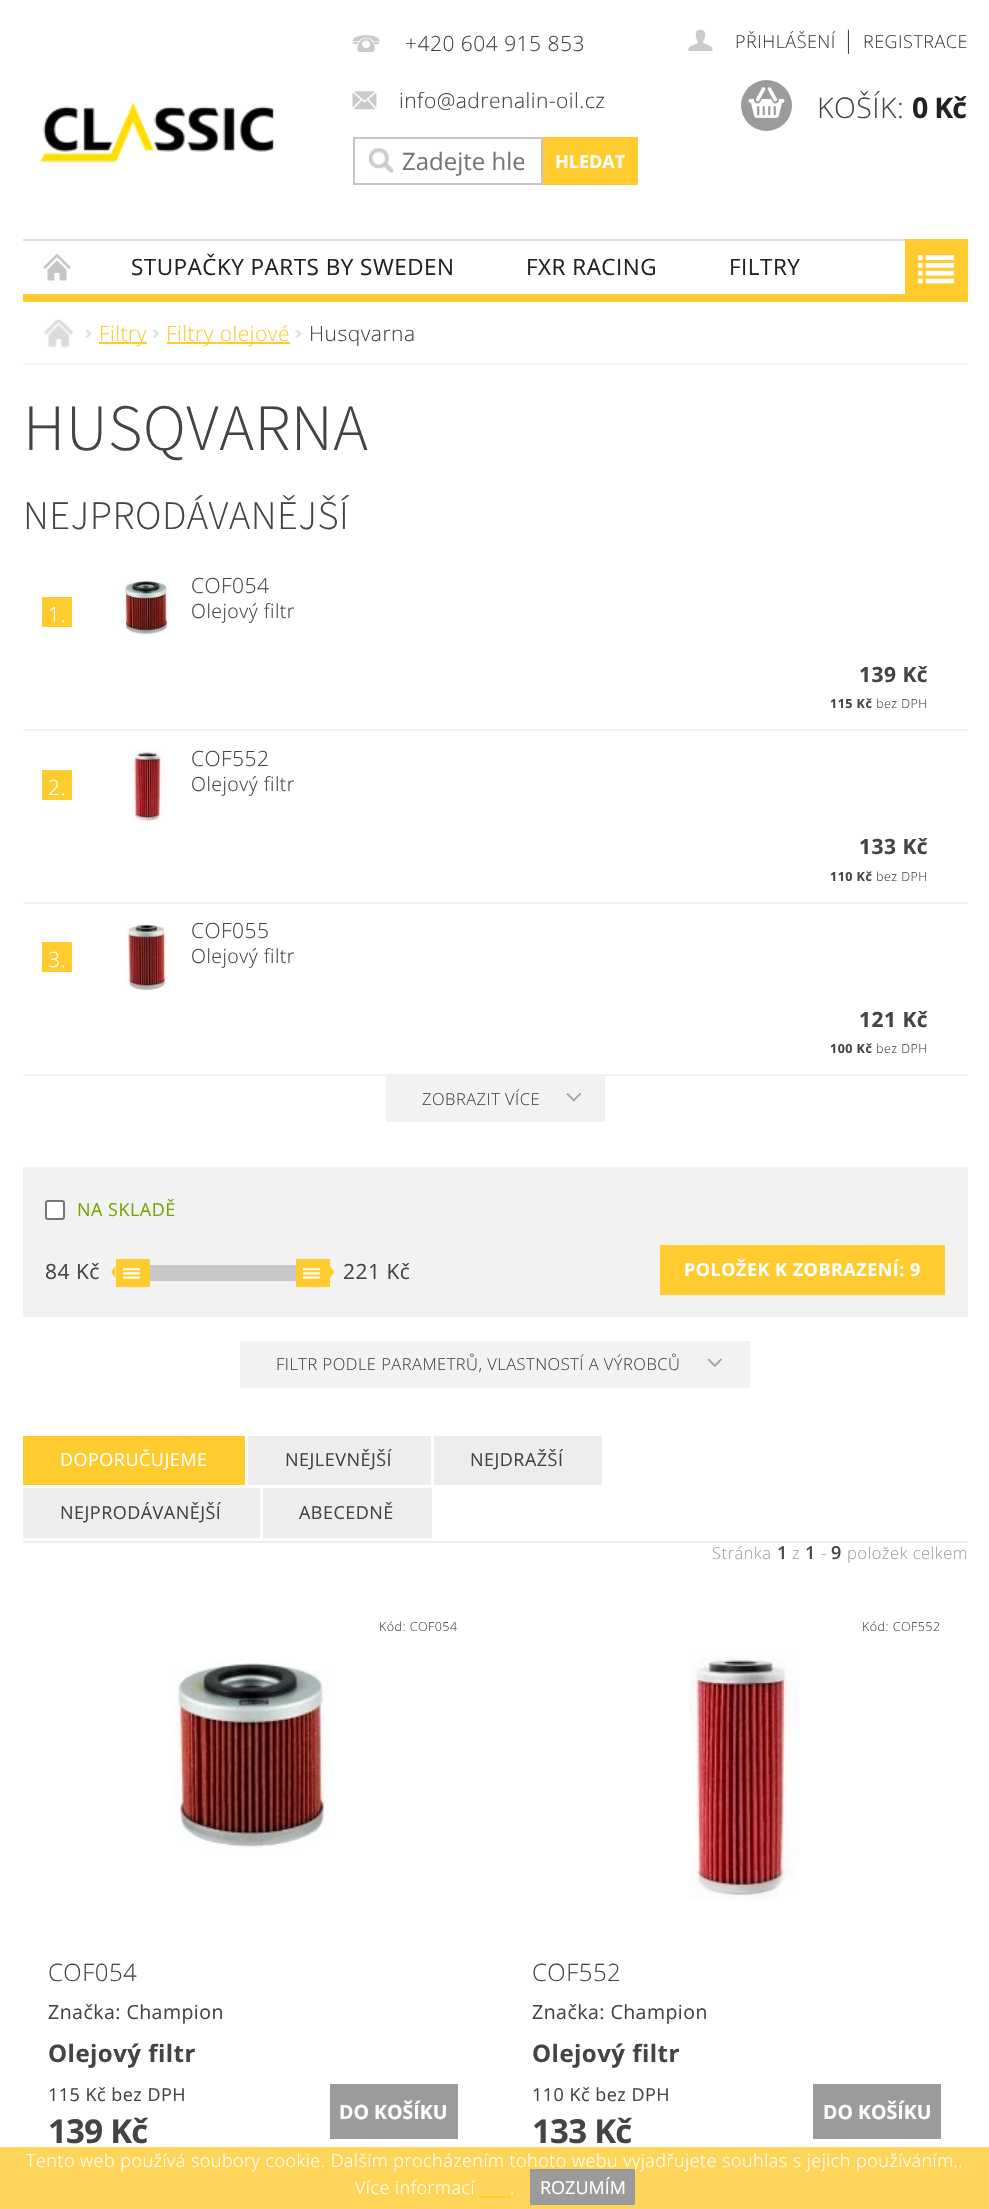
#include "include/core/SkBlurTypes.h"
#include "include/core/SkCanvas.h"
#include "include/core/SkData.h"
#include "include/core/SkFont.h"
#include "include/core/SkFontMgr.h"
#include "include/core/SkImage.h"
#include "include/core/SkMaskFilter.h"
#include "include/core/SkPaint.h"
#include "include/core/SkPathBuilder.h"
#include "include/core/SkTextBlob.h"
#include "include/effects/SkDashPathEffect.h"
#include "include/effects/SkGradientShader.h"
#include "include/utils/SkParsePath.h"

extern sk_sp<SkFontMgr> fontMgr;

void draw(SkCanvas* canvas) {
  SkPaint p;
  p.setAntiAlias(true);
  auto spacedText = [&](const char* s, float x, float y, const SkFont& font, const SkPaint& ink, float letter, float word) {
    std::vector<SkGlyphID> glyphs(font.countText(s, strlen(s), SkTextEncoding::kUTF8));
    std::vector<float> xs(glyphs.size());
    font.textToGlyphs(s, strlen(s), SkTextEncoding::kUTF8, glyphs);
    font.getXPos(glyphs, xs, x);
    float extra = 0;
    for (size_t i = 0; i < glyphs.size(); i++) {
      xs[i] += extra;
      extra += letter + word * (glyphs[i] == font.unicharToGlyph(' '));
    }
    canvas->drawTextBlob(SkTextBlob::MakeFromPosHGlyphs(glyphs, xs, y, font), 0, 0, ink);
  };
  canvas->clear(SK_ColorWHITE);
  p.setColor(SkColorSetRGB(255, 203, 47));
  canvas->drawRect(SkRect::MakeLTRB(23, 294, 905, 302), p);
  canvas->drawImageRect(SkImages::DeferredFromEncodedData(SkData::MakeFromFileName("images/1.png")), SkRect::MakeLTRB(40, 102, 274, 163), SkSamplingOptions());
  canvas->drawImageRect(SkImages::DeferredFromEncodedData(SkData::MakeFromFileName("images/2.png")), SkRect::MakeLTRB(352, 35, 380, 52), SkSamplingOptions());
  canvas->drawImageRect(SkImages::DeferredFromEncodedData(SkData::MakeFromFileName("images/3.png")), SkRect::MakeLTRB(352, 91, 377, 110), SkSamplingOptions());
  canvas->drawImageRect(SkImages::DeferredFromEncodedData(SkData::MakeFromFileName("images/4.png")), SkRect::MakeLTRB(369, 148, 394, 173), SkSamplingOptions());
  p.setStyle(SkPaint::kStroke_Style);
  p.setStrokeWidth(2);
  p.setColor(SkColorSetRGB(198, 198, 198));
  canvas->drawRect(SkRect::MakeLTRB(354, 138, 542, 184), p);
  p.setStyle(SkPaint::kFill_Style);
  p.setColor(SkColorSetRGB(255, 203, 47));
  canvas->drawRect(SkRect::MakeLTRB(543, 137, 638, 185), p);
  canvas->drawImageRect(SkImages::DeferredFromEncodedData(SkData::MakeFromFileName("images/5.png")), SkRect::MakeLTRB(688, 29, 713, 51), SkSamplingOptions());
  p.setColor(SkColorSetRGB(155, 155, 155));
  canvas->drawCircle(766.5f, 105.5f, 25.5f, p);
  canvas->drawImageRect(SkImages::DeferredFromEncodedData(SkData::MakeFromFileName("images/6.png")), SkRect::MakeLTRB(748, 87, 785, 118), SkSamplingOptions());
  p.setColor(SkColorSetRGB(224, 224, 224));
  canvas->drawRect(SkRect::MakeLTRB(23, 239, 905, 241), p);
  canvas->drawImageRect(SkImages::DeferredFromEncodedData(SkData::MakeFromFileName("images/7.png")), SkRect::MakeLTRB(43, 254, 71, 281), SkSamplingOptions());
  p.setColor(SkColorSetRGB(255, 203, 47));
  canvas->drawRect(SkRect::MakeLTRB(905, 239, 968, 302), p);
  canvas->drawImageRect(SkImages::DeferredFromEncodedData(SkData::MakeFromFileName("images/8.png")), SkRect::MakeLTRB(918, 255, 954, 284), SkSamplingOptions());
  p.setColor(SkColorSetRGB(242, 242, 242));
  canvas->drawRect(SkRect::MakeLTRB(23, 363, 968, 365), p);
  canvas->drawImageRect(SkImages::DeferredFromEncodedData(SkData::MakeFromFileName("images/9.png")), SkRect::MakeLTRB(43, 319, 74, 348), SkSamplingOptions());
  canvas->drawImageRect(SkImages::DeferredFromEncodedData(SkData::MakeFromFileName("images/10.png")), SkRect::MakeLTRB(85, 329, 92, 338), SkSamplingOptions());
  p.setColor(SkColorSetRGB(255, 203, 47));
  canvas->drawRect(SkRect::MakeLTRB(99, 342, 147, 344), p);
  canvas->drawImageRect(SkImages::DeferredFromEncodedData(SkData::MakeFromFileName("images/11.png")), SkRect::MakeLTRB(153, 329, 160, 338), SkSamplingOptions());
  canvas->drawRect(SkRect::MakeLTRB(167, 342, 290, 344), p);
  canvas->drawImageRect(SkImages::DeferredFromEncodedData(SkData::MakeFromFileName("images/12.png")), SkRect::MakeLTRB(295, 329, 302, 338), SkSamplingOptions());
  p.setColor(SkColorSetRGB(242, 242, 242));
  canvas->drawRect(SkRect::MakeLTRB(23, 729, 968, 731), p);
  p.setColor(SkColorSetRGB(255, 203, 47));
  canvas->drawRect(SkRect::MakeLTRB(42, 597, 72, 627), p);
  canvas->drawImageRect(SkImages::DeferredFromEncodedData(SkData::MakeFromFileName("images/13.png")), SkRect::MakeLTRB(116, 580, 173, 636), SkSamplingOptions());
  p.setColor(SkColorSetRGB(242, 242, 242));
  canvas->drawRect(SkRect::MakeLTRB(23, 902, 968, 904), p);
  p.setColor(SkColorSetRGB(255, 203, 47));
  canvas->drawRect(SkRect::MakeLTRB(42, 770, 72, 800), p);
  canvas->drawImageRect(SkImages::DeferredFromEncodedData(SkData::MakeFromFileName("images/14.png")), SkRect::MakeLTRB(130, 750, 166, 823), SkSamplingOptions());
  p.setColor(SkColorSetRGB(242, 242, 242));
  canvas->drawRect(SkRect::MakeLTRB(23, 1074, 968, 1076), p);
  p.setColor(SkColorSetRGB(255, 203, 47));
  canvas->drawRect(SkRect::MakeLTRB(42, 942, 72, 972), p);
  canvas->drawImageRect(SkImages::DeferredFromEncodedData(SkData::MakeFromFileName("images/15.png")), SkRect::MakeLTRB(126, 923, 172, 991), SkSamplingOptions());
  p.setColor(SkColorSetRGB(242, 242, 242));
  canvas->drawRect(SkRect::MakeLTRB(386, 1076, 605, 1122), p);
  canvas->drawImageRect(SkImages::DeferredFromEncodedData(SkData::MakeFromFileName("images/16.png")), SkRect::MakeLTRB(566, 1093, 581, 1102), SkSamplingOptions());
  canvas->drawRect(SkRect::MakeLTRB(23, 1167, 968, 1317), p);
  p.setColor(SK_ColorWHITE);
  canvas->drawRoundRect(SkRect::MakeLTRB(46, 1201, 64, 1219), 2, 2, p);
  p.setStyle(SkPaint::kStroke_Style);
  p.setColor(SkColorSetRGB(118, 118, 118));
  canvas->drawRoundRect(SkRect::MakeLTRB(46, 1201, 64, 1219), 2, 2, p);
  p.setStyle(SkPaint::kFill_Style);
  p.setColor(SkColorSetRGB(255, 203, 47));
  canvas->drawRect(SkRect::MakeLTRB(116, 1259, 150, 1287), p);
  canvas->drawPath(SkPathBuilder().moveTo(115.5f, 1266).lineTo(115.5f, 1278).lineTo(111, 1272).close().detach(), p);
  canvas->drawImageRect(SkImages::DeferredFromEncodedData(SkData::MakeFromFileName("images/17.png")), SkRect::MakeLTRB(123, 1268, 140, 1279), SkSamplingOptions());
  p.setColor(SkColorSetRGB(199, 199, 199));
  canvas->drawRect(SkRect::MakeLTRB(150, 1265, 296, 1281), p);
  p.setColor(SkColorSetRGB(255, 203, 47));
  canvas->drawRect(SkRect::MakeLTRB(296, 1259, 330, 1287), p);
  canvas->drawImageRect(SkImages::DeferredFromEncodedData(SkData::MakeFromFileName("images/17.png")), SkRect::MakeLTRB(303, 1268, 320, 1279), SkSamplingOptions());
  canvas->drawPath(SkPathBuilder().moveTo(330, 1278).lineTo(330, 1266).lineTo(334.5f, 1272).close().detach(), p);
  canvas->drawRect(SkRect::MakeLTRB(660, 1245, 945, 1295), p);
  p.setColor(SkColorSetRGB(242, 242, 242));
  canvas->drawRect(SkRect::MakeLTRB(240, 1341, 750, 1388), p);
  canvas->drawImageRect(SkImages::DeferredFromEncodedData(SkData::MakeFromFileName("images/18.png")), SkRect::MakeLTRB(707, 1358, 722, 1367), SkSamplingOptions());
  p.setColor(SkColorSetRGB(237, 237, 237));
  canvas->drawRect(SkRect::MakeLTRB(23, 1541, 968, 1543), p);
  p.setColor(SkColorSetRGB(255, 203, 47));
  canvas->drawRect(SkRect::MakeLTRB(23, 1436, 245, 1485), p);
  p.setColor(SkColorSetRGB(237, 237, 237));
  canvas->drawRect(SkRect::MakeLTRB(248, 1436, 431, 1485), p);
  canvas->drawRect(SkRect::MakeLTRB(434, 1436, 602, 1485), p);
  canvas->drawRect(SkRect::MakeLTRB(23, 1488, 260, 1538), p);
  canvas->drawRect(SkRect::MakeLTRB(263, 1488, 432, 1538), p);
  canvas->drawImageRect(SkImages::DeferredFromEncodedData(SkData::MakeFromFileName("images/19.png")), SkRect::MakeLTRB(170, 1659, 335, 1849), SkSamplingOptions());
  p.setStyle(SkPaint::kStroke_Style);
  p.setColor(SkColorSetRGB(155, 155, 155));
  canvas->drawRect(SkRect::MakeLTRB(331, 2085, 457, 2138), p);
  p.setStyle(SkPaint::kFill_Style);
  canvas->drawRect(SkRect::MakeLTRB(332, 2086, 456, 2137), p);
  canvas->drawImageRect(SkImages::DeferredFromEncodedData(SkData::MakeFromFileName("images/20.png")), SkRect::MakeLTRB(689, 1655, 799, 1900), SkSamplingOptions());
  p.setStyle(SkPaint::kStroke_Style);
  canvas->drawRect(SkRect::MakeLTRB(814, 2085, 940, 2138), p);
  p.setStyle(SkPaint::kFill_Style);
  canvas->drawRect(SkRect::MakeLTRB(815, 2086, 939, 2137), p);
  p.setColor(SkColorSetRGB(255, 213, 89));
  canvas->drawRect(SkRect::MakeLTRB(0, 2147, 989, 2209), p);
  p.setColor(SkColorSetRGB(255, 203, 47));
  canvas->drawRect(SkRect::MakeLTRB(480, 2196, 510, 2198), p);
  SkFont font1(fontMgr->matchFamilyStyle("Open Sans", SkFontStyle(300, SkFontStyle::kNormal_Width, SkFontStyle::kUpright_Slant)), 21);
  font1.setSubpixel(true);
  p.setColor(SkColorSetRGB(68, 68, 68));
  spacedText("+420 604 915 853", 405, 51, font1, p, 0.48f, 0);
  spacedText("info@adrenalin-oil.cz", 399, 108, font1, p, 0.48f, 0);
  canvas->save();
  canvas->clipRect(SkRect::MakeLTRB(402, 144, 524, 177));
  SkFont font2(fontMgr->matchFamilyStyle("Open Sans", SkFontStyle::Normal()), 24);
  font2.setSubpixel(true);
  p.setColor(SkColorSetRGB(117, 117, 117));
  canvas->drawString("Zadejte hle", 402, 170, font2, p);
  canvas->restore();
  SkFont font3(fontMgr->matchFamilyStyle("Open Sans", SkFontStyle::Bold()), 18);
  font3.setSubpixel(true);
  p.setColor(SK_ColorWHITE);
  canvas->drawString("HLEDAT", 555, 168, font3, p);
  SkFont font4(fontMgr->matchFamilyStyle("Open Sans", SkFontStyle(300, SkFontStyle::kNormal_Width, SkFontStyle::kUpright_Slant)), 18);
  font4.setSubpixel(true);
  p.setColor(SkColorSetRGB(68, 68, 68));
  spacedText("PŘIHLÁŠENÍ", 735, 48, font4, p, 0.48f, 0);
  SkFont font5(fontMgr->matchFamilyStyle("Open Sans", SkFontStyle(300, SkFontStyle::kNormal_Width, SkFontStyle::kUpright_Slant)), 24);
  font5.setSubpixel(true);
  spacedText("|", 842, 48, font5, p, 0.48f, 0);
  spacedText("REGISTRACE", 863, 48, font4, p, 0.48f, 0);
  SkFont font6(fontMgr->matchFamilyStyle("Open Sans", SkFontStyle(300, SkFontStyle::kNormal_Width, SkFontStyle::kUpright_Slant)), 28.5f);
  font6.setSubpixel(true);
  spacedText("KOŠÍK:", 817, 118, font6, p, 0.48f, 0);
  SkFont font7(fontMgr->matchFamilyStyle("Open Sans", SkFontStyle::Bold()), 28.5f);
  font7.setSubpixel(true);
  p.setColor(SkColorSetRGB(34, 34, 34));
  spacedText("0 Kč", 912, 118, font7, p, -0.75f, 0);
  SkFont font8(fontMgr->matchFamilyStyle("Open Sans", SkFontStyle::Normal()), 22.5f);
  font8.setSubpixel(true);
  spacedText("STUPAČKY PARTS BY SWEDEN", 131, 275, font8, p, 0.48f, 0);
  spacedText("FXR RACING", 526, 275, font8, p, 0.48f, 0);
  spacedText("FILTRY", 729, 275, font8, p, 0.48f, 0);
  p.setColor(SkColorSetRGB(255, 203, 47));
  spacedText("Filtry", 99, 341, font1, p, 0.48f, 0);
  spacedText("Filtry olejové", 166, 341, font1, p, 0.48f, 0);
  p.setColor(SkColorSetRGB(68, 68, 68));
  spacedText("Husqvarna", 309, 341, font1, p, 0.48f, 0);
  SkFont font9(fontMgr->matchFamilyStyle("Source Sans 3", SkFontStyle(300, SkFontStyle::kNormal_Width, SkFontStyle::kUpright_Slant)), 66);
  font9.setSubpixel(true);
  spacedText("HUSQVARNA", 23, 450, font9, p, 0.48f, 0);
  SkFont font10(fontMgr->matchFamilyStyle("Source Sans 3", SkFontStyle(300, SkFontStyle::kNormal_Width, SkFontStyle::kUpright_Slant)), 40.5f);
  font10.setSubpixel(true);
  spacedText("NEJPRODÁVANĚJŠÍ", 23, 529, font10, p, 0.48f, 0);
  p.setColor(SK_ColorWHITE);
  spacedText("1.", 48, 622, font1, p, 0.48f, 0);
  p.setColor(SkColorSetRGB(68, 68, 68));
  spacedText("COF054", 191, 593, font1, p, 0.48f, 0);
  SkFont font11(fontMgr->matchFamilyStyle("Open Sans", SkFontStyle(300, SkFontStyle::kNormal_Width, SkFontStyle::kUpright_Slant)), 19.5f);
  font11.setSubpixel(true);
  spacedText("Olejový filtr", 191, 618, font11, p, 0.48f, 0);
  SkFont font12(fontMgr->matchFamilyStyle("Open Sans", SkFontStyle::Bold()), 21);
  font12.setSubpixel(true);
  spacedText("139 Kč", 859, 682, font12, p, 0.48f, 0);
  SkFont font13(fontMgr->matchFamilyStyle("Open Sans", SkFontStyle::Bold()), 12.5f);
  font13.setSubpixel(true);
  spacedText("115 Kč", 830, 708, font13, p, 0.48f, 0);
  SkFont font14(fontMgr->matchFamilyStyle("Open Sans", SkFontStyle(300, SkFontStyle::kNormal_Width, SkFontStyle::kUpright_Slant)), 12.5f);
  font14.setSubpixel(true);
  spacedText("bez DPH", 876, 708, font14, p, 0.48f, 0);
  p.setColor(SK_ColorWHITE);
  spacedText("2.", 48, 795, font1, p, 0.48f, 0);
  p.setColor(SkColorSetRGB(68, 68, 68));
  spacedText("COF552", 191, 766, font1, p, 0.48f, 0);
  spacedText("Olejový filtr", 191, 791, font11, p, 0.48f, 0);
  spacedText("133 Kč", 859, 854, font12, p, 0.48f, 0);
  spacedText("110 Kč", 830, 881, font13, p, 0.48f, 0);
  spacedText("bez DPH", 876, 881, font14, p, 0.48f, 0);
  p.setColor(SK_ColorWHITE);
  spacedText("3.", 48, 967, font1, p, 0.48f, 0);
  p.setColor(SkColorSetRGB(68, 68, 68));
  spacedText("COF055", 191, 938, font1, p, 0.48f, 0);
  spacedText("Olejový filtr", 191, 963, font11, p, 0.48f, 0);
  spacedText("121 Kč", 859, 1027, font12, p, 0.48f, 0);
  spacedText("100 Kč", 830, 1053, font13, p, 0.48f, 0);
  spacedText("bez DPH", 876, 1053, font14, p, 0.48f, 0);
  SkFont font15(fontMgr->matchFamilyStyle("Open Sans", SkFontStyle(300, SkFontStyle::kNormal_Width, SkFontStyle::kUpright_Slant)), 16.5f);
  font15.setSubpixel(true);
  spacedText("ZOBRAZIT VÍCE", 422, 1105, font15, p, 0.48f, 0);
  SkFont font16(fontMgr->matchFamilyStyle("Open Sans", SkFontStyle::Normal()), 18);
  font16.setSubpixel(true);
  p.setColor(SkColorSetRGB(120, 162, 6));
  spacedText("NA SKLADĚ", 77, 1216, font16, p, 0.48f, 0);
  SkFont font17(fontMgr->matchFamilyStyle("Open Sans", SkFontStyle::Normal()), 21);
  font17.setSubpixel(true);
  p.setColor(SkColorSetRGB(68, 68, 68));
  spacedText("84 Kč", 45, 1279, font17, p, 0.48f, 0);
  spacedText("221 Kč", 343, 1279, font17, p, 0.48f, 0);
  p.setColor(SK_ColorWHITE);
  spacedText("POLOŽEK K ZOBRAZENÍ: 9", 684, 1276, font3, p, 0.48f, 0);
  p.setColor(SkColorSetRGB(68, 68, 68));
  spacedText("FILTR PODLE PARAMETRŮ, VLASTNOSTÍ A VÝROBCŮ", 276, 1370, font15, p, 0.48f, 0);
  p.setColor(SK_ColorWHITE);
  spacedText("DOPORUČUJEME", 60, 1466, font16, p, 0.48f, 0);
  p.setColor(SkColorSetRGB(68, 68, 68));
  spacedText("NEJLEVNĚJŠÍ", 285, 1466, font16, p, 0.48f, 0);
  spacedText("NEJDRAŽŠÍ", 470, 1466, font16, p, 0.48f, 0);
  spacedText("NEJPRODÁVANĚJŠÍ", 60, 1519, font16, p, 0.48f, 0);
  spacedText("ABECEDNĚ", 299, 1519, font16, p, 0.48f, 0);
  p.setColor(SkColorSetRGB(160, 160, 160));
  spacedText("Stránka", 712, 1559, font15, p, 0.48f, 0);
  SkFont font18(fontMgr->matchFamilyStyle("Open Sans", SkFontStyle(600, SkFontStyle::kNormal_Width, SkFontStyle::kUpright_Slant)), 18);
  font18.setSubpixel(true);
  p.setColor(SkColorSetRGB(68, 68, 68));
  spacedText("1", 777, 1559, font18, p, 0.48f, 0);
  p.setColor(SkColorSetRGB(160, 160, 160));
  spacedText("z", 792, 1559, font15, p, 0.48f, 0);
  p.setColor(SkColorSetRGB(68, 68, 68));
  spacedText("1", 805, 1559, font18, p, 0.48f, 0);
  p.setColor(SkColorSetRGB(160, 160, 160));
  spacedText("-", 821, 1559, font15, p, 0.48f, 0);
  p.setColor(SkColorSetRGB(68, 68, 68));
  spacedText("9", 831, 1559, font18, p, 0.48f, 0);
  p.setColor(SkColorSetRGB(160, 160, 160));
  spacedText("položek celkem", 847, 1559, font15, p, 0.48f, 0);
  p.setColor(SkColorSetRGB(68, 68, 68));
  spacedText("Kód: COF054", 379, 1631, font14, p, 0.48f, 0);
  spacedText("COF054", 48, 1981, font5, p, 0.48f, 0);
  SkFont font19(fontMgr->matchFamilyStyle("Open Sans", SkFontStyle::Normal()), 19.5f);
  font19.setSubpixel(true);
  spacedText("Značka: Champion", 48, 2019, font19, p, 0.48f, 0);
  SkFont font20(fontMgr->matchFamilyStyle("Open Sans", SkFontStyle::Bold()), 24);
  font20.setSubpixel(true);
  spacedText("Olejový filtr", 48, 2062, font20, p, 0.48f, 0);
  spacedText("115 Kč bez DPH", 48, 2101, font16, p, 0.48f, 0);
  SkFont font21(fontMgr->matchFamilyStyle("Open Sans", SkFontStyle::Bold()), 33);
  font21.setSubpixel(true);
  spacedText("139 Kč", 48, 2143, font21, p, -0.75f, 0);
  SkFont font22(fontMgr->matchFamilyStyle("Open Sans", SkFontStyle::Bold()), 19.5f);
  font22.setSubpixel(true);
  p.setColor(SK_ColorWHITE);
  canvas->drawString("DO KOŠÍKU", 339, 2119, font22, p);
  p.setColor(SkColorSetRGB(68, 68, 68));
  spacedText("Kód: COF552", 862, 1631, font14, p, 0.48f, 0);
  spacedText("COF552", 532, 1981, font5, p, 0.48f, 0);
  spacedText("Značka: Champion", 532, 2019, font19, p, 0.48f, 0);
  spacedText("Olejový filtr", 532, 2062, font20, p, 0.48f, 0);
  spacedText("110 Kč bez DPH", 532, 2101, font16, p, 0.48f, 0);
  spacedText("133 Kč", 532, 2143, font21, p, -0.75f, 0);
  p.setColor(SK_ColorWHITE);
  canvas->drawString("DO KOŠÍKU", 823, 2119, font22, p);
  spacedText("Tento web používá soubory cookie. Dalším procházením tohoto webu vyjadřujete souhlas s jejich používáním..", 26, 2167, font4, p, 0.48f, 0);
  spacedText("Více informací", 355, 2194, font4, p, 0.48f, 0);
  spacedText(".", 510, 2194, font4, p, 0.48f, 0);
  p.setColor(SkColorSetRGB(155, 155, 155));
  canvas->drawRect(SkRect::MakeLTRB(530, 2169, 635, 2205), p);
  p.setColor(SK_ColorWHITE);
  canvas->drawString("ROZUMÍM", 540, 2194, font16, p);
}
